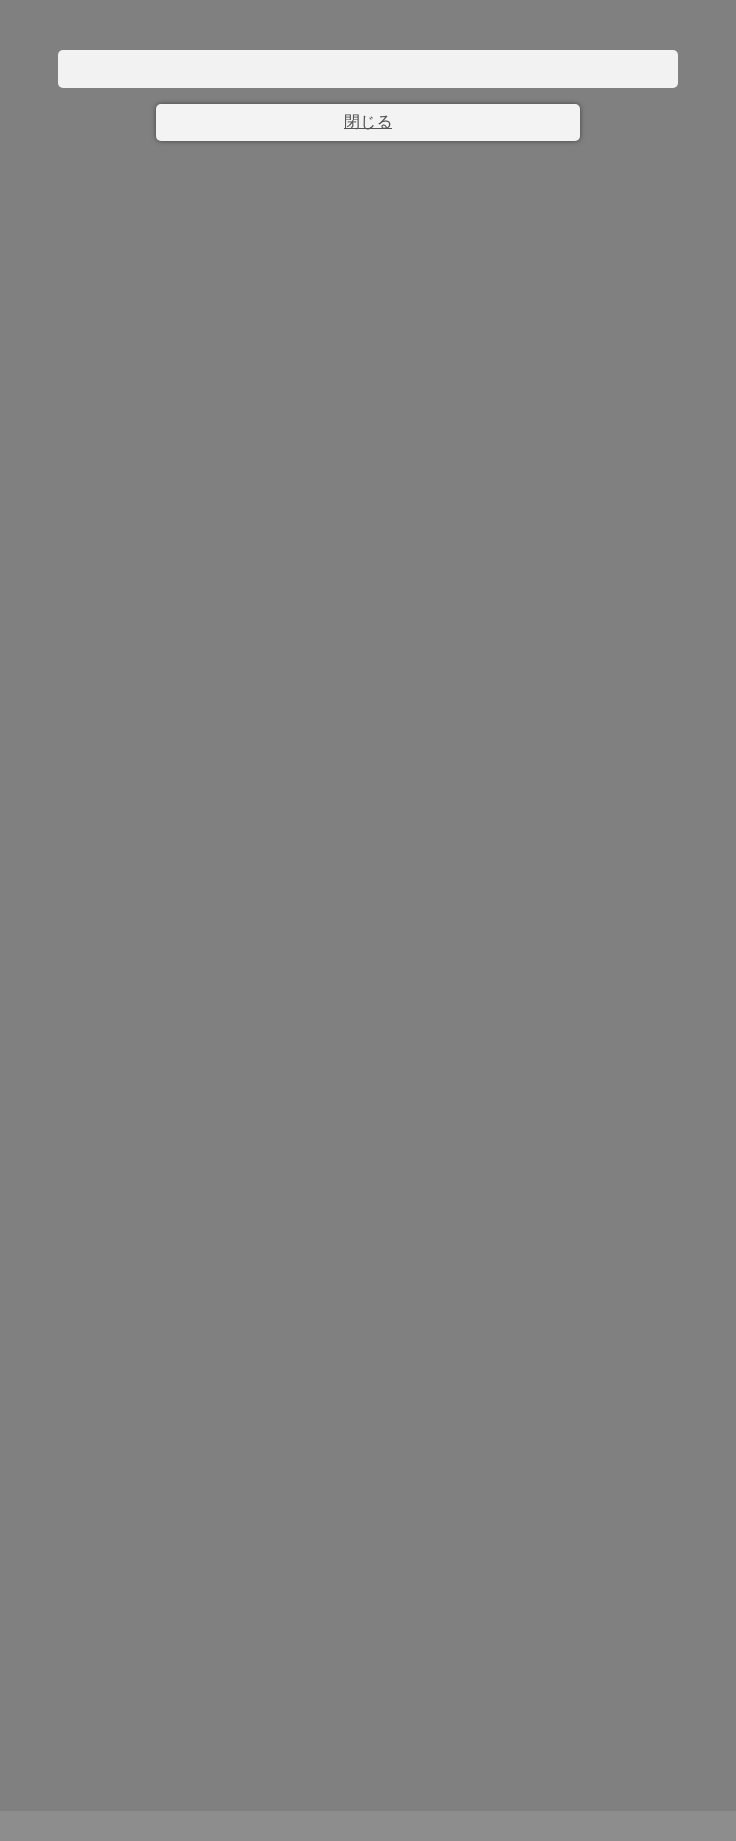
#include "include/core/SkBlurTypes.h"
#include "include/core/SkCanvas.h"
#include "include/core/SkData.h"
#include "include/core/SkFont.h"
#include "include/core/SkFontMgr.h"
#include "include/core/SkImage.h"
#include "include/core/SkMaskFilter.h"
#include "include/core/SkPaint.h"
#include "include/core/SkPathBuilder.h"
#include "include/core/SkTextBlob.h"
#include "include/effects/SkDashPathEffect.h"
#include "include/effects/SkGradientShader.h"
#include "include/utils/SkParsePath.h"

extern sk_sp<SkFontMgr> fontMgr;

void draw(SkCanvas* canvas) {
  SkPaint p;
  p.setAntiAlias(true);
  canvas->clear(SkColorSetRGB(128, 128, 128));
  p.setColor(SkColorSetRGB(242, 242, 242));
  canvas->drawRoundRect(SkRect::MakeLTRB(58, 50, 678, 88), 5, 5, p);
  canvas->save();
  canvas->clipPath(SkPathBuilder(SkPathFillType::kEvenOdd).moveTo(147, 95).lineTo(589, 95).lineTo(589, 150).lineTo(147, 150).close().moveTo(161, 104).lineTo(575, 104).cubicTo(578, 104, 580, 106, 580, 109).lineTo(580, 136).cubicTo(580, 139, 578, 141, 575, 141).lineTo(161, 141).cubicTo(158, 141, 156, 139, 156, 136).lineTo(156, 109).cubicTo(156, 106, 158, 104, 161, 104).close().detach(), true);
  p.setColor(SkColorSetARGB(128, 0, 0, 0));
  p.setMaskFilter(SkMaskFilter::MakeBlur(kNormal_SkBlurStyle, 2.5f));
  canvas->drawRoundRect(SkRect::MakeLTRB(156, 104, 580, 141), 5, 5, p);
  p.setMaskFilter(nullptr);
  canvas->restore();
  p.setColor(SkColorSetARGB(230, 255, 255, 255));
  canvas->drawRoundRect(SkRect::MakeLTRB(156, 104, 580, 141), 5, 5, p);
  p.setColor(SkColorSetRGB(85, 85, 85));
  canvas->drawRect(SkRect::MakeLTRB(344, 128, 392, 129), p);
  p.setColor(SkColorSetRGB(141, 141, 141));
  canvas->drawRect(SkRect::MakeLTRB(0, 1811, 736, 1841), p);
  SkFont font1(fontMgr->matchFamilyStyle("WenQuanYi Zen Hei", SkFontStyle(500, SkFontStyle::kNormal_Width, SkFontStyle::kUpright_Slant)), 16);
  font1.setSubpixel(true);
  p.setColor(SkColorSetRGB(85, 85, 85));
  canvas->drawString("閉じる", 344, 127, font1, p);
}
